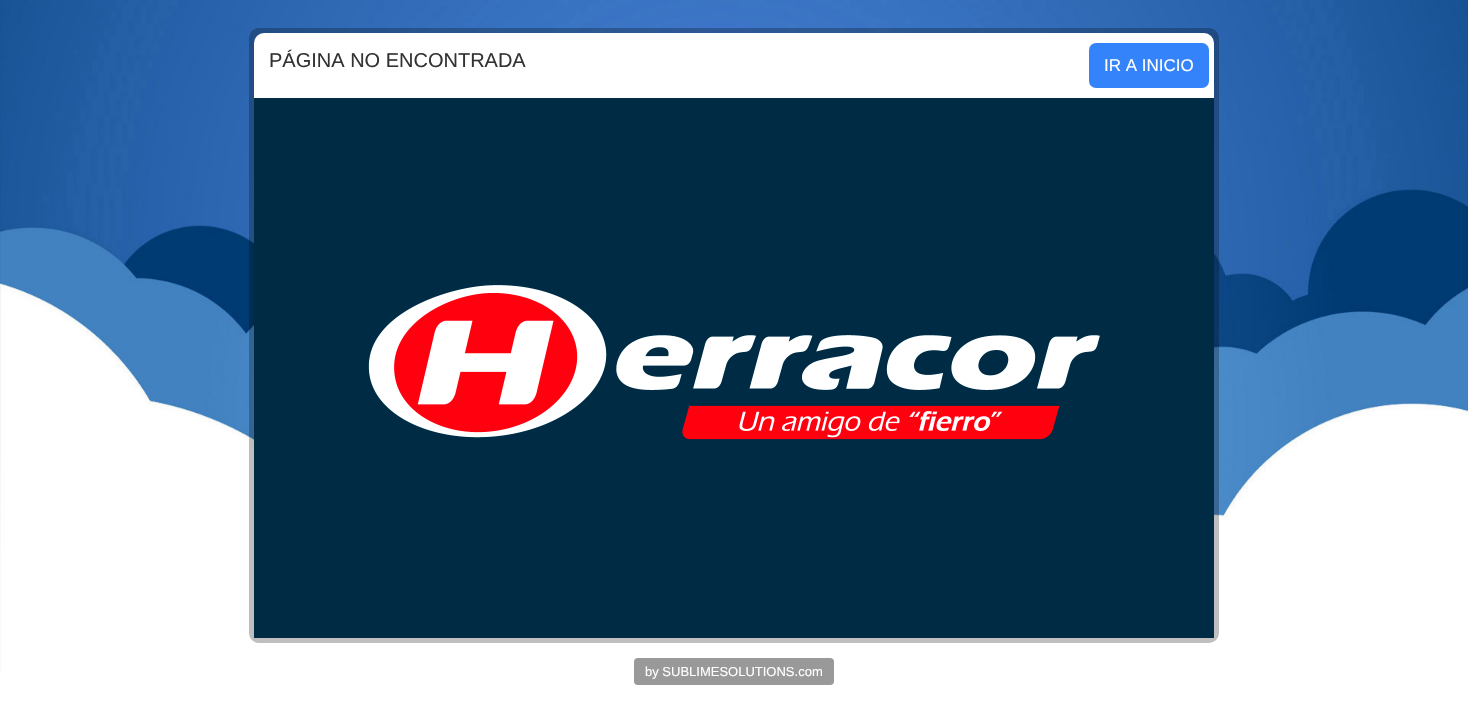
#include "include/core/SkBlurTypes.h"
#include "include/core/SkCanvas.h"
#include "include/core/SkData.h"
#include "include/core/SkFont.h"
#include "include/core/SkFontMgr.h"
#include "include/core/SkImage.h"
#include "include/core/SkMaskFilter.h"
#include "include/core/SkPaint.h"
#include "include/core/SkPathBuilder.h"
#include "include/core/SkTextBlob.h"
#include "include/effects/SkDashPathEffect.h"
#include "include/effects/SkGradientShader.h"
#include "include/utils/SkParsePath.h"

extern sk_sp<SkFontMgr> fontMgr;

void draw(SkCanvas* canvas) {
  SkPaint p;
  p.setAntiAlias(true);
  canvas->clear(SK_ColorWHITE);
  canvas->drawImageRect(SkImages::DeferredFromEncodedData(SkData::MakeFromFileName("images/1.png")), SkRect::MakeLTRB(0, 0, 1468, 673), SkSamplingOptions());
  canvas->drawImageRect(SkImages::DeferredFromEncodedData(SkData::MakeFromFileName("images/2.png")), SkRect::MakeLTRB(249, 28, 1219, 643), SkSamplingOptions());
  p.setColor(SK_ColorWHITE);
  canvas->drawRoundRect(SkRect::MakeLTRB(254, 33, 1214, 638), 10, 10, p);
  p.setColor(SkColorSetRGB(52, 131, 250));
  canvas->drawRoundRect(SkRect::MakeLTRB(1089, 43, 1209, 88), 7, 7, p);
  canvas->drawImageRect(SkImages::DeferredFromEncodedData(SkData::MakeFromFileName("images/3.png")), SkRect::MakeLTRB(254, 98, 1214, 638), SkSamplingOptions());
  p.setColor(SkColorSetRGB(153, 153, 153));
  canvas->drawRoundRect(SkRect::MakeLTRB(634, 658, 834, 685), 4, 4, p);
  SkFont font1(fontMgr->matchFamilyStyle("Liberation Sans", SkFontStyle::Normal()), 20);
  font1.setSubpixel(true);
  p.setColor(SkColorSetRGB(51, 51, 51));
  canvas->drawString("PÁGINA NO ENCONTRADA", 269, 67, font1, p);
  SkFont font2(fontMgr->matchFamilyStyle("Liberation Sans", SkFontStyle::Normal()), 17);
  font2.setSubpixel(true);
  p.setColor(SK_ColorWHITE);
  canvas->drawString("IR A INICIO", 1104, 71, font2, p);
  SkFont font3(fontMgr->matchFamilyStyle("Liberation Sans", SkFontStyle::Normal()), 13);
  font3.setSubpixel(true);
  canvas->drawString("by SUBLIMESOLUTIONS.com", 645, 676, font3, p);
}
